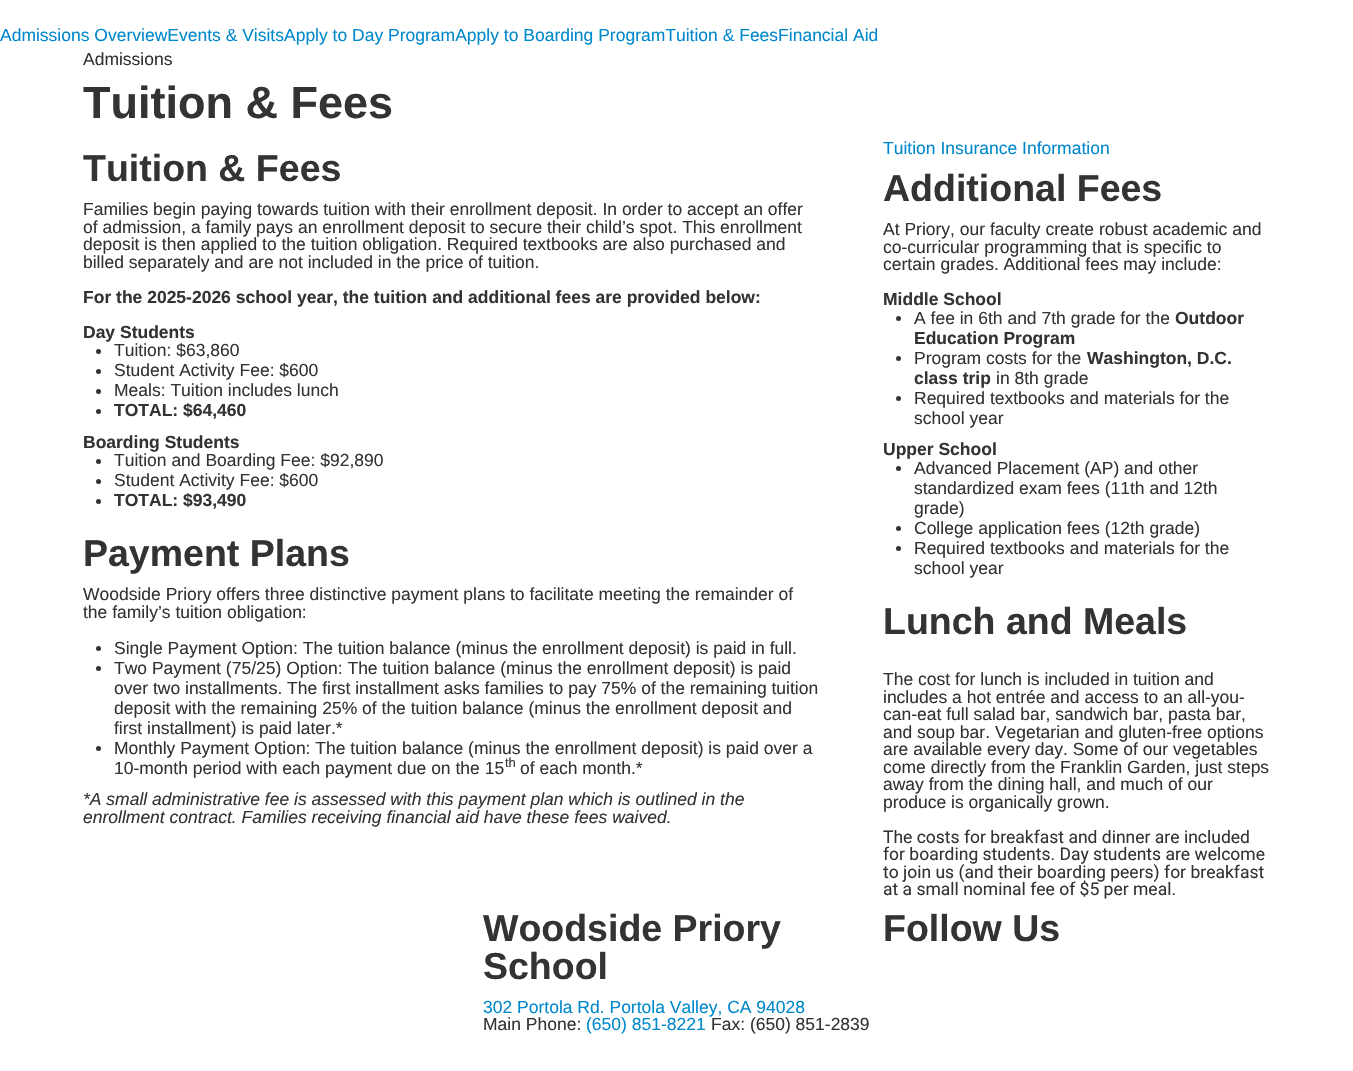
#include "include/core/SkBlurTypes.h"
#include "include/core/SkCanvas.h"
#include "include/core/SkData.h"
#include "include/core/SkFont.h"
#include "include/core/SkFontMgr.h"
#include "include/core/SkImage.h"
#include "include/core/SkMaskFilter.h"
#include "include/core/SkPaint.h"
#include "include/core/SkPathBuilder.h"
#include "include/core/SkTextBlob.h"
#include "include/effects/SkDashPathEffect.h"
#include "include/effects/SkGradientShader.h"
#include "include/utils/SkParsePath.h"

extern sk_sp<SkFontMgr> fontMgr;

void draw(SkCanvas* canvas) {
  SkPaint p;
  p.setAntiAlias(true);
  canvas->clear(SK_ColorWHITE);
  p.setColor(SkColorSetRGB(51, 51, 51));
  canvas->drawCircle(98.5f, 351.5f, 2.5f, p);
  canvas->drawCircle(98.5f, 371.5f, 2.5f, p);
  canvas->drawCircle(98.5f, 391.5f, 2.5f, p);
  canvas->drawCircle(98.5f, 411.5f, 2.5f, p);
  canvas->drawCircle(98.5f, 461.5f, 2.5f, p);
  canvas->drawCircle(98.5f, 481.5f, 2.5f, p);
  canvas->drawCircle(98.5f, 501.5f, 2.5f, p);
  canvas->drawCircle(98.5f, 648.5f, 2.5f, p);
  canvas->drawCircle(98.5f, 668.5f, 2.5f, p);
  canvas->drawCircle(98.5f, 748.5f, 2.5f, p);
  canvas->drawCircle(898.5f, 318.5f, 2.5f, p);
  canvas->drawCircle(898.5f, 358.5f, 2.5f, p);
  canvas->drawCircle(898.5f, 398.5f, 2.5f, p);
  canvas->drawCircle(898.5f, 468.5f, 2.5f, p);
  canvas->drawCircle(898.5f, 528.5f, 2.5f, p);
  canvas->drawCircle(898.5f, 548.5f, 2.5f, p);
  SkFont font1(fontMgr->matchFamilyStyle("Liberation Sans", SkFontStyle::Normal()), 17.5f);
  font1.setSubpixel(true);
  p.setColor(SkColorSetRGB(0, 136, 204));
  canvas->drawString("Admissions OverviewEvents & VisitsApply to Day ProgramApply to Boarding ProgramTuition & FeesFinancial Aid", 0, 41, font1, p);
  p.setColor(SkColorSetRGB(51, 51, 51));
  canvas->drawString("Admissions", 83, 65, font1, p);
  SkFont font2(fontMgr->matchFamilyStyle("Liberation Sans", SkFontStyle::Bold()), 45);
  font2.setSubpixel(true);
  canvas->drawString("Tuition & Fees", 83, 118, font2, p);
  SkFont font3(fontMgr->matchFamilyStyle("Liberation Sans", SkFontStyle::Bold()), 37.5f);
  font3.setSubpixel(true);
  canvas->drawString("Tuition & Fees", 83, 181, font3, p);
  canvas->drawString("Families begin paying towards tuition with their enrollment deposit. In order to accept an offer", 83, 215, font1, p);
  canvas->drawString("of admission, a family pays an enrollment deposit to secure their child’s spot. This enrollment", 83, 233, font1, p);
  canvas->drawString("deposit is then applied to the tuition obligation. Required textbooks are also purchased and", 83, 250, font1, p);
  canvas->drawString("billed separately and are not included in the price of tuition.", 83, 268, font1, p);
  SkFont font4(fontMgr->matchFamilyStyle("Liberation Sans", SkFontStyle::Bold()), 17.5f);
  font4.setSubpixel(true);
  canvas->drawString("For the 2025-2026 school year, the tuition and additional fees are provided below:", 83, 303, font4, p);
  canvas->drawString("Day Students", 83, 338, font4, p);
  canvas->drawString("Tuition: $63,860", 114, 356, font1, p);
  canvas->drawString("Student Activity Fee: $600", 114, 376, font1, p);
  canvas->drawString("Meals: Tuition includes lunch", 114, 396, font1, p);
  canvas->drawString("TOTAL: $64,460", 114, 416, font4, p);
  canvas->drawString("Boarding Students", 83, 448, font4, p);
  canvas->drawString("Tuition and Boarding Fee: $92,890", 114, 466, font1, p);
  canvas->drawString("Student Activity Fee: $600", 114, 486, font1, p);
  canvas->drawString("TOTAL: $93,490", 114, 506, font4, p);
  canvas->drawString("Payment Plans", 83, 566, font3, p);
  canvas->drawString("Woodside Priory offers three distinctive payment plans to facilitate meeting the remainder of", 83, 600, font1, p);
  canvas->drawString("the family’s tuition obligation:", 83, 618, font1, p);
  canvas->drawString("Single Payment Option: The tuition balance (minus the enrollment deposit) is paid in full.", 114, 654, font1, p);
  canvas->drawString("Two Payment (75/25) Option: The tuition balance (minus the enrollment deposit) is paid", 114, 674, font1, p);
  canvas->drawString("over two installments. The first installment asks families to pay 75% of the remaining tuition", 114, 694, font1, p);
  canvas->drawString("deposit with the remaining 25% of the tuition balance (minus the enrollment deposit and", 114, 714, font1, p);
  canvas->drawString("first installment) is paid later.*", 114, 734, font1, p);
  canvas->drawString("Monthly Payment Option: The tuition balance (minus the enrollment deposit) is paid over a", 114, 754, font1, p);
  canvas->drawString("10-month period with each payment due on the 15", 114, 774, font1, p);
  SkFont font5(fontMgr->matchFamilyStyle("Liberation Sans", SkFontStyle::Normal()), 13);
  font5.setSubpixel(true);
  canvas->drawString("th", 505, 767, font5, p);
  canvas->drawString("of each month.*", 520, 774, font1, p);
  SkFont font6(fontMgr->matchFamilyStyle("Liberation Sans", SkFontStyle::Italic()), 17.5f);
  font6.setSubpixel(true);
  canvas->drawString("*A small administrative fee is assessed with this payment plan which is outlined in the", 83, 805, font6, p);
  canvas->drawString("enrollment contract. Families receiving financial aid have these fees waived.", 83, 823, font6, p);
  p.setColor(SkColorSetRGB(0, 136, 204));
  canvas->drawString("Tuition Insurance Information", 883, 154, font1, p);
  p.setColor(SkColorSetRGB(51, 51, 51));
  canvas->drawString("Additional Fees", 883, 201, font3, p);
  canvas->drawString("At Priory, our faculty create robust academic and", 883, 235, font1, p);
  canvas->drawString("co-curricular programming that is specific to", 883, 253, font1, p);
  canvas->drawString("certain grades. Additional fees may include:", 883, 270, font1, p);
  canvas->drawString("Middle School", 883, 305, font4, p);
  canvas->drawString("A fee in 6th and 7th grade for the", 914, 324, font1, p);
  canvas->drawString("Outdoor", 1175, 324, font4, p);
  canvas->drawString("Education Program", 914, 344, font4, p);
  canvas->drawString("Program costs for the", 914, 364, font1, p);
  canvas->drawString("Washington, D.C.", 1087, 364, font4, p);
  canvas->drawString("class trip", 914, 384, font4, p);
  canvas->drawString("in 8th grade", 996, 384, font1, p);
  canvas->drawString("Required textbooks and materials for the", 914, 404, font1, p);
  canvas->drawString("school year", 914, 424, font1, p);
  canvas->drawString("Upper School", 883, 455, font4, p);
  canvas->drawString("Advanced Placement (AP) and other", 914, 474, font1, p);
  canvas->drawString("standardized exam fees (11th and 12th", 914, 494, font1, p);
  canvas->drawString("grade)", 914, 514, font1, p);
  canvas->drawString("College application fees (12th grade)", 914, 534, font1, p);
  canvas->drawString("Required textbooks and materials for the", 914, 554, font1, p);
  canvas->drawString("school year", 914, 574, font1, p);
  canvas->drawString("Lunch and Meals", 883, 634, font3, p);
  canvas->drawString("The cost for lunch is included in tuition and", 883, 685, font1, p);
  canvas->drawString("includes a hot entrée and access to an all-you-", 883, 703, font1, p);
  canvas->drawString("can-eat full salad bar, sandwich bar, pasta bar,", 883, 720, font1, p);
  canvas->drawString("and soup bar. Vegetarian and gluten-free options", 883, 738, font1, p);
  canvas->drawString("are available every day. Some of our vegetables", 883, 755, font1, p);
  canvas->drawString("come directly from the Franklin Garden, just steps", 883, 773, font1, p);
  canvas->drawString("away from the dining hall, and much of our", 883, 790, font1, p);
  canvas->drawString("produce is organically grown.", 883, 808, font1, p);
  SkFont font7(fontMgr->matchFamilyStyle("Roboto", SkFontStyle::Normal()), 17.5f);
  font7.setSubpixel(true);
  canvas->drawString("The costs for breakfast and dinner are included", 883, 843, font7, p);
  canvas->drawString("for boarding students. Day students are welcome", 883, 860, font7, p);
  canvas->drawString("to join us (and their boarding peers) for breakfast", 883, 878, font7, p);
  canvas->drawString("at a small nominal fee of $5 per meal.", 883, 895, font7, p);
  canvas->drawString("Woodside Priory", 483, 941, font3, p);
  canvas->drawString("School", 483, 979, font3, p);
  p.setColor(SkColorSetRGB(0, 136, 204));
  canvas->drawString("302 Portola Rd. Portola Valley, CA 94028", 483, 1013, font1, p);
  p.setColor(SkColorSetRGB(51, 51, 51));
  canvas->drawString("Main Phone:", 483, 1030, font1, p);
  p.setColor(SkColorSetRGB(0, 136, 204));
  canvas->drawString("(650) 851-8221", 586, 1030, font1, p);
  p.setColor(SkColorSetRGB(51, 51, 51));
  canvas->drawString("Fax: (650) 851-2839", 711, 1030, font1, p);
  canvas->drawString("Follow Us", 883, 941, font3, p);
}
